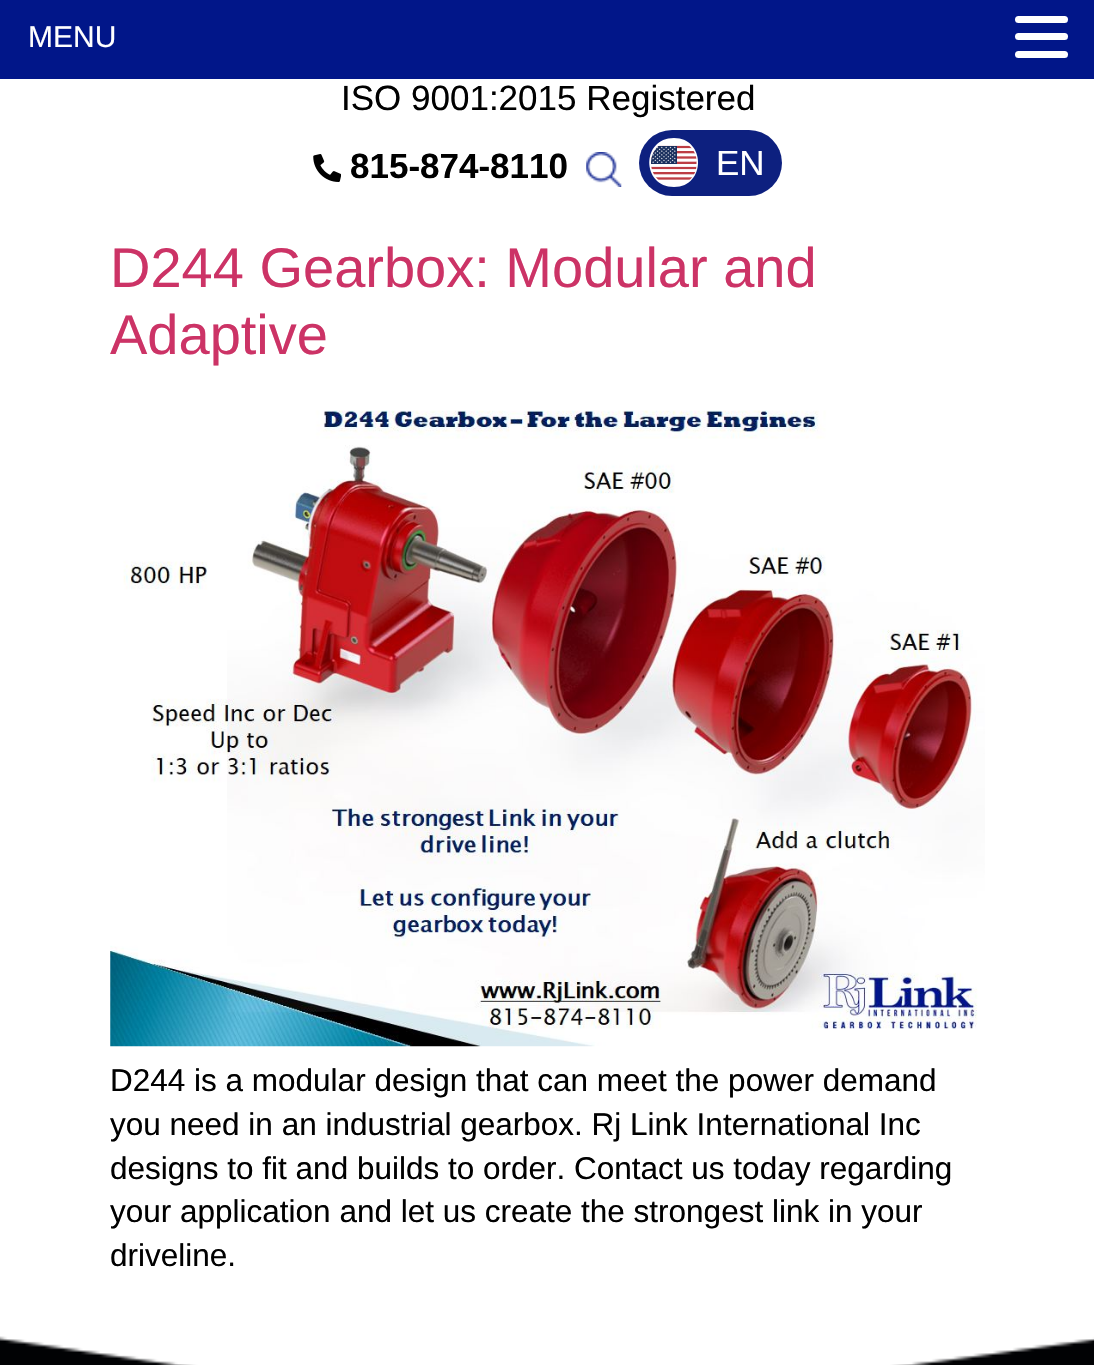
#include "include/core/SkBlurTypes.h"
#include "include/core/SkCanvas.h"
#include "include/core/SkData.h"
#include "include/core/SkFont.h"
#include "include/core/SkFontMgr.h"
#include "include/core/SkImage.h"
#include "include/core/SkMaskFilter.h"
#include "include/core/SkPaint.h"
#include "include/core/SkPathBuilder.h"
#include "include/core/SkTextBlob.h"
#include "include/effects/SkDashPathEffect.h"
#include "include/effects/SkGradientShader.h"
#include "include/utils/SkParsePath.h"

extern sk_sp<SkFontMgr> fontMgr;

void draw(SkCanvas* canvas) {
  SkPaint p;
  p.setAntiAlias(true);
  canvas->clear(SK_ColorWHITE);
  p.setColor(SkColorSetRGB(1, 22, 137));
  canvas->drawRect(SkRect::MakeLTRB(0, 0, 1094, 79), p);
  p.setColor(SK_ColorWHITE);
  canvas->drawRoundRect(SkRect::MakeLTRB(1015, 16, 1068, 23), 3.5f, 3.5f, p);
  canvas->drawRoundRect(SkRect::MakeLTRB(1015, 33, 1068, 40), 3.5f, 3.5f, p);
  canvas->drawRoundRect(SkRect::MakeLTRB(1015, 51, 1068, 58), 3.5f, 3.5f, p);
  canvas->drawImageRect(SkImages::DeferredFromEncodedData(SkData::MakeFromFileName("images/1.png")), SkRect::MakeLTRB(313, 154, 341, 182), SkSamplingOptions());
  canvas->drawImageRect(SkImages::DeferredFromEncodedData(SkData::MakeFromFileName("images/2.png")), SkRect::MakeLTRB(586, 152, 622, 187), SkSamplingOptions());
  p.setColor(SkColorSetRGB(13, 32, 127));
  canvas->drawRoundRect(SkRect::MakeLTRB(639, 130, 782, 196), 33, 33, p);
  p.setColor(SK_ColorWHITE);
  canvas->drawPath(SkPathBuilder().moveTo(674, 138).cubicTo(706, 138, 706, 187, 674, 187).cubicTo(641, 187, 641, 138, 674, 138).close().detach(), p);
  canvas->drawImageRect(SkImages::DeferredFromEncodedData(SkData::MakeFromFileName("images/3.png")), SkRect::MakeLTRB(651, 145, 697, 180), SkSamplingOptions());
  canvas->drawImageRect(SkImages::DeferredFromEncodedData(SkData::MakeFromFileName("images/4.png")), SkRect::MakeLTRB(110, 410, 985, 1047), SkSamplingOptions());
  canvas->drawImageRect(SkImages::DeferredFromEncodedData(SkData::MakeFromFileName("images/5.png")), SkRect::MakeLTRB(0, 1336, 1094, 1365), SkSamplingOptions());
  SkFont font1(fontMgr->matchFamilyStyle("Liberation Sans", SkFontStyle::Normal()), 30);
  font1.setSubpixel(true);
  canvas->drawString("MENU", 28, 47, font1, p);
  SkFont font2(fontMgr->matchFamilyStyle("Liberation Sans", SkFontStyle::Normal()), 35);
  font2.setSubpixel(true);
  p.setColor(SK_ColorBLACK);
  canvas->drawString("ISO 9001:2015 Registered", 341, 110, font2, p);
  SkFont font3(fontMgr->matchFamilyStyle("Liberation Sans", SkFontStyle::Bold()), 35);
  font3.setSubpixel(true);
  canvas->drawString("815-874-8110", 350, 178, font3, p);
  p.setColor(SK_ColorWHITE);
  canvas->drawString("EN", 716, 175, font2, p);
  SkFont font4(fontMgr->matchFamilyStyle("Liberation Sans", SkFontStyle::Normal()), 56);
  font4.setSubpixel(true);
  p.setColor(SkColorSetRGB(204, 51, 102));
  canvas->drawString("D244 Gearbox: Modular and", 110, 287, font4, p);
  canvas->drawString("Adaptive", 110, 354, font4, p);
  SkFont font5(fontMgr->matchFamilyStyle("Liberation Sans", SkFontStyle::Normal()), 31.5f);
  font5.setSubpixel(true);
  p.setColor(SK_ColorBLACK);
  canvas->drawString("D244 is a modular design that can meet the power demand", 110, 1091, font5, p);
  canvas->drawString("you need in an industrial gearbox. Rj Link International Inc", 110, 1135, font5, p);
  canvas->drawString("designs to fit and builds to order. Contact us today regarding", 110, 1179, font5, p);
  canvas->drawString("your application and let us create the strongest link in your", 110, 1222, font5, p);
  canvas->drawString("driveline.", 110, 1266, font5, p);
}
